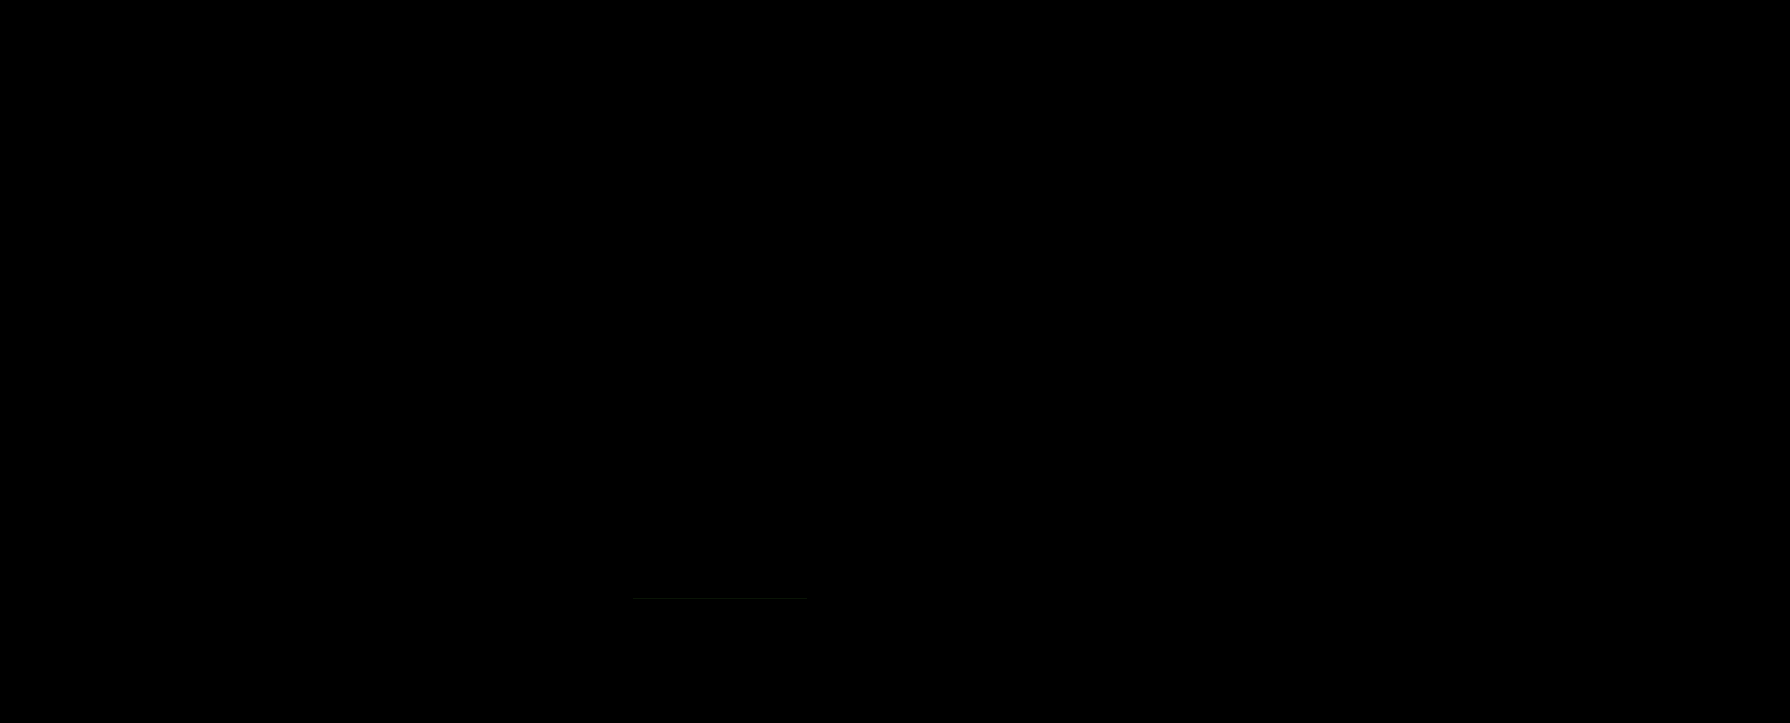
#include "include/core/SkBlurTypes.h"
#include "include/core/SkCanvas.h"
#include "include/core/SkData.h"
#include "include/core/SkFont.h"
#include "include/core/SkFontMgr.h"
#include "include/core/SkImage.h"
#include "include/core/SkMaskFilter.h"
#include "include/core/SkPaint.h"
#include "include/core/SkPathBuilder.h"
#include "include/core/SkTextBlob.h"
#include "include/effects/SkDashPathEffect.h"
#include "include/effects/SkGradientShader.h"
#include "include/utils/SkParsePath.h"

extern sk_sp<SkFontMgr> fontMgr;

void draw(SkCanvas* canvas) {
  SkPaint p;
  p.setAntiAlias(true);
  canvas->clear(SK_ColorBLACK);
  p.setColor(SkColorSetRGB(9, 20, 5));
  canvas->drawRect(SkRect::MakeLTRB(633, 598, 807, 599), p);
}
